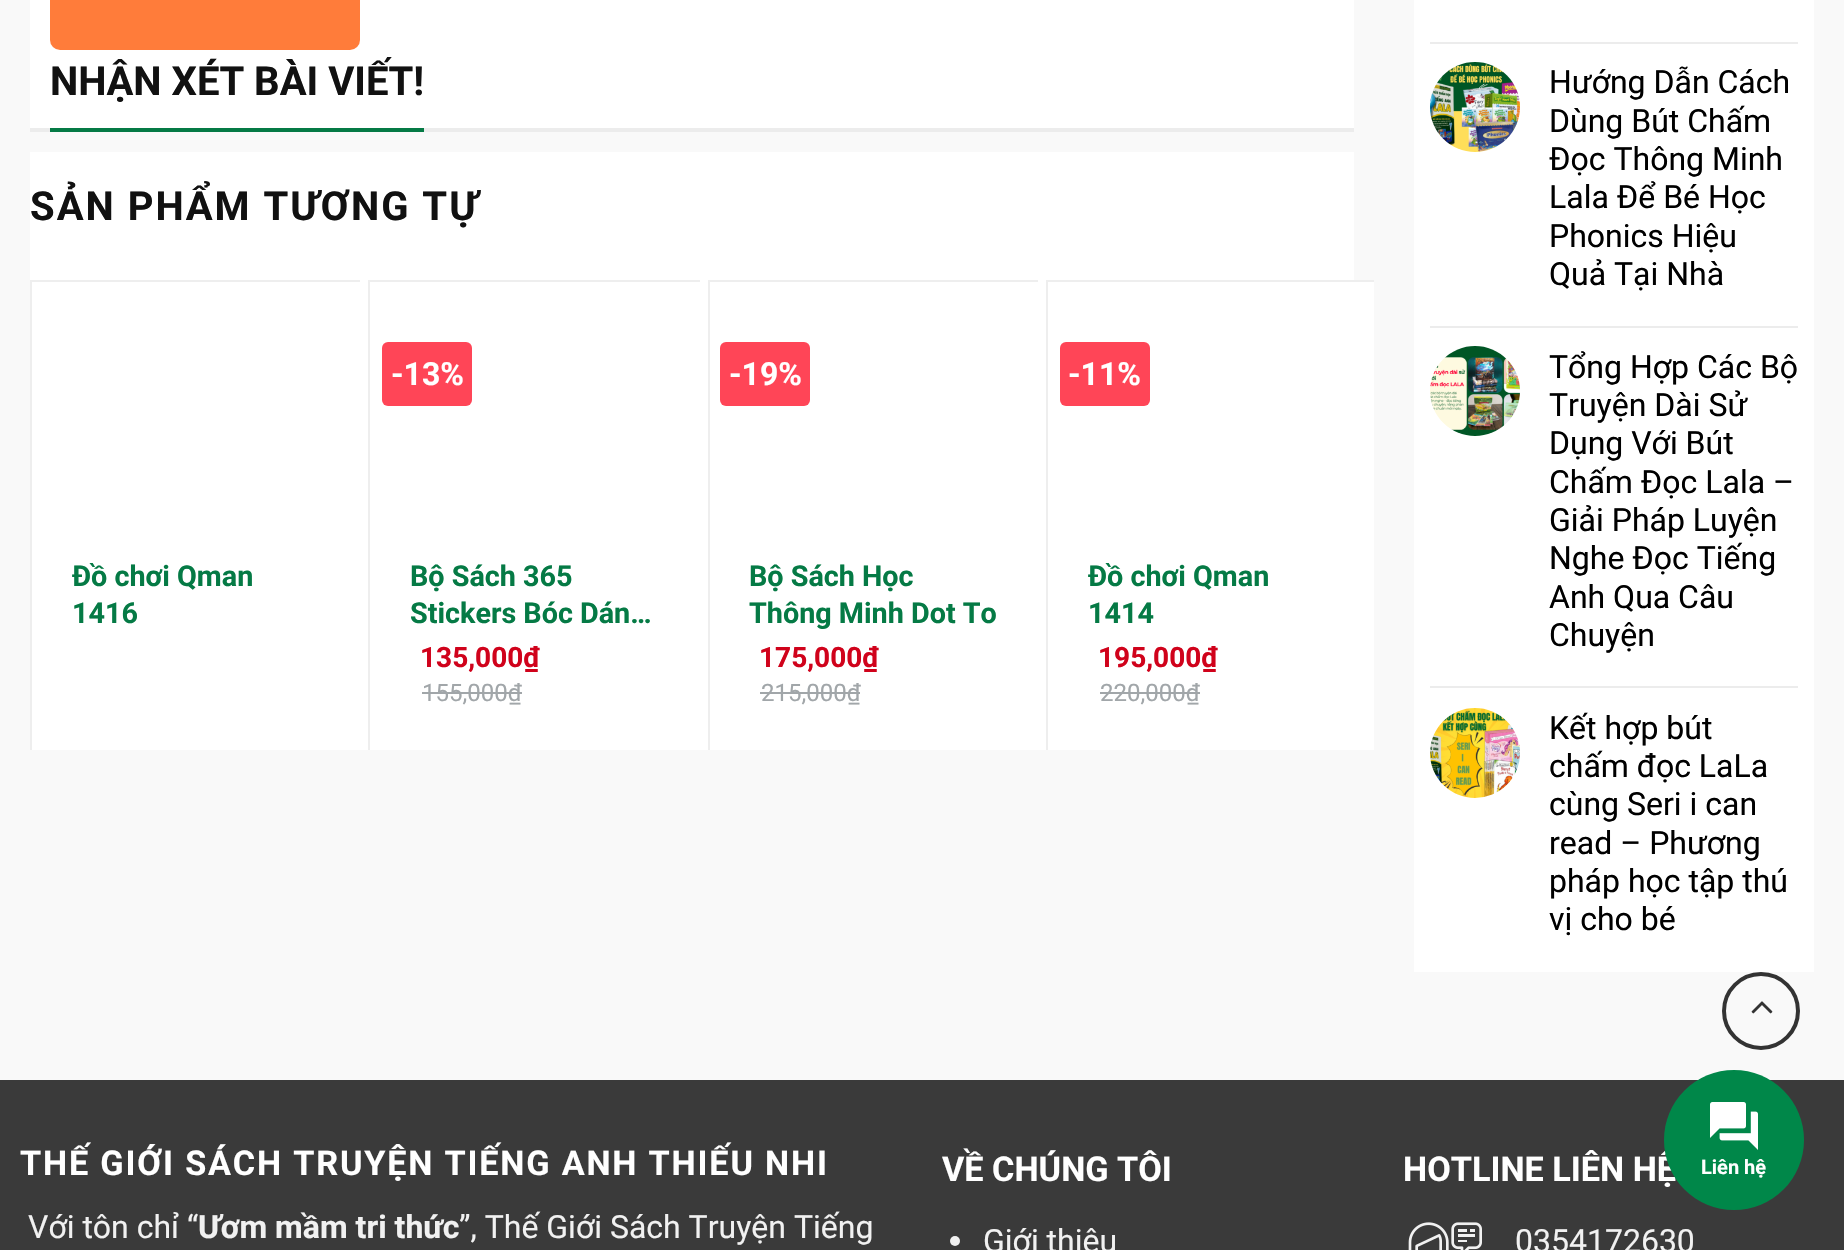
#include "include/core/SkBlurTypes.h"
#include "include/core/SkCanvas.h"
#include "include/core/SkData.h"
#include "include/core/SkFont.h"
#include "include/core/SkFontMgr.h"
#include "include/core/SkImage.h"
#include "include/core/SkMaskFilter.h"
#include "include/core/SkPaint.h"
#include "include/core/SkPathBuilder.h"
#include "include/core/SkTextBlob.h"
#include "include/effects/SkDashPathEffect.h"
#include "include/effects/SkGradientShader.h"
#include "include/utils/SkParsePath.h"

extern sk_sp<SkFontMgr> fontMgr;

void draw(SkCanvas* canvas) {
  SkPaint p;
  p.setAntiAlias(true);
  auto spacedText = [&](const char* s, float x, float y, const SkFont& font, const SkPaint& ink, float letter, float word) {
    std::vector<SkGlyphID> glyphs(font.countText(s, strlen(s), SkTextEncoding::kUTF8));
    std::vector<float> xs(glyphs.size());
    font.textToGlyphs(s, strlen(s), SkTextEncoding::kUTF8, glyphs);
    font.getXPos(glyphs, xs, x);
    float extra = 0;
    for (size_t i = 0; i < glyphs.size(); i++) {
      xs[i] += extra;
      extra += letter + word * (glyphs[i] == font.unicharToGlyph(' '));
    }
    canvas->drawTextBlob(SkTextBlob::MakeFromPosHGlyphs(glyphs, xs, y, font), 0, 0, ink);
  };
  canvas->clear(SkColorSetRGB(249, 249, 249));
  p.setColor(SK_ColorWHITE);
  canvas->drawRect(SkRect::MakeLTRB(30, 0, 1354, 128), p);
  p.setColor(SkColorSetRGB(255, 124, 58));
  canvas->drawRoundRect(SkRect::MakeLTRB(50, -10, 360, 50), 10, 10, p);
  p.setColor(SkColorSetRGB(236, 236, 236));
  canvas->drawRect(SkRect::MakeLTRB(30, 128, 1354, 132), p);
  p.setColor(SkColorSetRGB(5, 122, 69));
  canvas->drawRect(SkRect::MakeLTRB(50, 128, 424, 132), p);
  p.setColor(SK_ColorWHITE);
  canvas->drawRect(SkRect::MakeLTRB(30, 152, 1354, 750), p);
  p.setColor(SkColorSetRGB(238, 238, 238));
  canvas->drawRect(SkRect::MakeLTRB(30, 280, 360, 282), p);
  canvas->drawRect(SkRect::MakeLTRB(30, 280, 32, 750), p);
  canvas->drawRect(SkRect::MakeLTRB(368, 280, 700, 282), p);
  canvas->drawRect(SkRect::MakeLTRB(368, 280, 370, 750), p);
  p.setColor(SkColorSetRGB(255, 69, 87));
  canvas->drawRoundRect(SkRect::MakeLTRB(382, 342, 472, 406), 6, 6, p);
  p.setColor(SkColorSetRGB(161, 166, 169));
  canvas->drawRect(SkRect::MakeLTRB(422, 692, 522, 694), p);
  p.setColor(SkColorSetRGB(238, 238, 238));
  canvas->drawRect(SkRect::MakeLTRB(708, 280, 1038, 282), p);
  canvas->drawRect(SkRect::MakeLTRB(708, 280, 710, 750), p);
  p.setColor(SkColorSetRGB(255, 69, 87));
  canvas->drawRoundRect(SkRect::MakeLTRB(720, 342, 810, 406), 6, 6, p);
  p.setColor(SkColorSetRGB(161, 166, 169));
  canvas->drawRect(SkRect::MakeLTRB(760, 692, 860, 694), p);
  p.setColor(SK_ColorWHITE);
  canvas->drawRect(SkRect::MakeLTRB(1354, 282, 1374, 750), p);
  p.setColor(SkColorSetRGB(238, 238, 238));
  canvas->drawRect(SkRect::MakeLTRB(1046, 280, 1374, 282), p);
  canvas->drawRect(SkRect::MakeLTRB(1046, 280, 1048, 750), p);
  p.setColor(SkColorSetRGB(255, 69, 87));
  canvas->drawRoundRect(SkRect::MakeLTRB(1060, 342, 1150, 406), 6, 6, p);
  p.setColor(SkColorSetRGB(161, 166, 169));
  canvas->drawRect(SkRect::MakeLTRB(1100, 692, 1200, 694), p);
  p.setColor(SK_ColorWHITE);
  canvas->drawRect(SkRect::MakeLTRB(1414, 0, 1814, 972), p);
  p.setColor(SkColorSetRGB(236, 236, 236));
  canvas->drawRect(SkRect::MakeLTRB(1430, 42, 1798, 44), p);
  canvas->drawImageRect(SkImages::DeferredFromEncodedData(SkData::MakeFromFileName("images/1.png")), SkRect::MakeLTRB(1430, 62, 1520, 152), SkSamplingOptions());
  canvas->drawRect(SkRect::MakeLTRB(1430, 326, 1798, 328), p);
  canvas->drawImageRect(SkImages::DeferredFromEncodedData(SkData::MakeFromFileName("images/2.png")), SkRect::MakeLTRB(1430, 346, 1520, 436), SkSamplingOptions());
  canvas->drawRect(SkRect::MakeLTRB(1430, 686, 1798, 688), p);
  canvas->drawImageRect(SkImages::DeferredFromEncodedData(SkData::MakeFromFileName("images/3.png")), SkRect::MakeLTRB(1430, 708, 1520, 798), SkSamplingOptions());
  p.setStyle(SkPaint::kStroke_Style);
  p.setStrokeWidth(4);
  p.setColor(SkColorSetRGB(51, 51, 51));
  canvas->drawCircle(1761, 1011, 37, p);
  canvas->drawImageRect(SkImages::DeferredFromEncodedData(SkData::MakeFromFileName("images/4.png")), SkRect::MakeLTRB(1751, 1001, 1773, 1014), SkSamplingOptions());
  p.setStyle(SkPaint::kFill_Style);
  p.setColor(SkColorSetRGB(58, 58, 58));
  canvas->drawRect(SkRect::MakeLTRB(0, 1080, 1844, 1250), p);
  p.setColor(SkColorSetRGB(241, 241, 241));
  canvas->drawCircle(955, 1241, 5, p);
  canvas->drawImageRect(SkImages::DeferredFromEncodedData(SkData::MakeFromFileName("images/5.png")), SkRect::MakeLTRB(1408, 1222, 1482, 1250), SkSamplingOptions());
  SkFont font1(fontMgr->matchFamilyStyle("Roboto", SkFontStyle::Bold()), 40);
  font1.setSubpixel(true);
  p.setColor(SkColorSetRGB(17, 17, 17));
  canvas->drawString("NHẬN XÉT BÀI VIẾT!", 50, 95, font1, p);
  spacedText("SẢN PHẨM TƯƠNG TỰ", 30, 220, font1, p, 2, 0);
  canvas->save();
  canvas->clipRect(SkRect::MakeLTRB(72, 560, 322, 634));
  SkFont font2(fontMgr->matchFamilyStyle("Roboto", SkFontStyle::Bold()), 28.75f);
  font2.setSubpixel(true);
  p.setColor(SkColorSetRGB(5, 122, 69));
  canvas->drawString("Đồ chơi Qman", 72, 586, font2, p);
  canvas->restore();
  canvas->drawString("1416", 72, 623, font2, p);
  SkFont font3(fontMgr->matchFamilyStyle("Roboto", SkFontStyle::Bold()), 32);
  font3.setSubpixel(true);
  p.setColor(SK_ColorWHITE);
  canvas->drawString("-13%", 391, 385, font3, p);
  p.setColor(SkColorSetRGB(5, 122, 69));
  canvas->drawString("Bộ Sách 365", 410, 586, font2, p);
  canvas->drawString("Stickers Bóc Dán…", 410, 623, font2, p);
  SkFont font4(fontMgr->matchFamilyStyle("Roboto", SkFontStyle::Bold()), 28);
  font4.setSubpixel(true);
  p.setColor(SkColorSetRGB(208, 2, 27));
  canvas->drawString("135,000₫", 420, 667, font4, p);
  SkFont font5(fontMgr->matchFamilyStyle("Roboto", SkFontStyle::Normal()), 24);
  font5.setSubpixel(true);
  p.setColor(SkColorSetRGB(161, 166, 169));
  canvas->drawString("155,000₫", 422, 701, font5, p);
  p.setColor(SK_ColorWHITE);
  canvas->drawString("-19%", 729, 385, font3, p);
  p.setColor(SkColorSetRGB(5, 122, 69));
  canvas->drawString("Bộ Sách Học", 749, 586, font2, p);
  canvas->drawString("Thông Minh Dot To", 749, 623, font2, p);
  p.setColor(SkColorSetRGB(208, 2, 27));
  canvas->drawString("175,000₫", 759, 667, font4, p);
  p.setColor(SkColorSetRGB(161, 166, 169));
  canvas->drawString("215,000₫", 761, 701, font5, p);
  p.setColor(SK_ColorWHITE);
  canvas->drawString("-11%", 1068, 385, font3, p);
  canvas->save();
  canvas->clipRect(SkRect::MakeLTRB(1088, 560, 1338, 634));
  p.setColor(SkColorSetRGB(5, 122, 69));
  canvas->drawString("Đồ chơi Qman", 1088, 586, font2, p);
  canvas->restore();
  canvas->drawString("1414", 1088, 623, font2, p);
  p.setColor(SkColorSetRGB(208, 2, 27));
  canvas->drawString("195,000₫", 1098, 667, font4, p);
  p.setColor(SkColorSetRGB(161, 166, 169));
  canvas->drawString("220,000₫", 1100, 701, font5, p);
  SkFont font6(fontMgr->matchFamilyStyle("Roboto", SkFontStyle::Normal()), 32);
  font6.setSubpixel(true);
  p.setColor(SK_ColorBLACK);
  canvas->drawString("Hướng Dẫn Cách", 1549, 93, font6, p);
  canvas->drawString("Dùng Bút Chấm", 1549, 132, font6, p);
  canvas->drawString("Đọc Thông Minh", 1549, 170, font6, p);
  canvas->drawString("Lala Để Bé Học", 1549, 208, font6, p);
  canvas->drawString("Phonics Hiệu", 1549, 247, font6, p);
  canvas->drawString("Quả Tại Nhà", 1549, 285, font6, p);
  canvas->drawString("Tổng Hợp Các Bộ", 1549, 378, font6, p);
  canvas->drawString("Truyện Dài Sử", 1549, 416, font6, p);
  canvas->drawString("Dụng Với Bút", 1549, 454, font6, p);
  canvas->drawString("Chấm Đọc Lala –", 1549, 493, font6, p);
  canvas->drawString("Giải Pháp Luyện", 1549, 531, font6, p);
  canvas->drawString("Nghe Đọc Tiếng", 1549, 569, font6, p);
  canvas->drawString("Anh Qua Câu", 1549, 608, font6, p);
  canvas->drawString("Chuyện", 1549, 646, font6, p);
  canvas->drawString("Kết hợp bút", 1549, 739, font6, p);
  canvas->drawString("chấm đọc LaLa", 1549, 777, font6, p);
  canvas->drawString("cùng Seri i can", 1549, 815, font6, p);
  canvas->drawString("read – Phương", 1549, 854, font6, p);
  canvas->drawString("pháp học tập thú", 1549, 892, font6, p);
  canvas->drawString("vị cho bé", 1549, 930, font6, p);
  SkFont font7(fontMgr->matchFamilyStyle("Roboto", SkFontStyle::Bold()), 34.2f);
  font7.setSubpixel(true);
  p.setColor(SK_ColorWHITE);
  spacedText("THẾ GIỚI SÁCH TRUYỆN TIẾNG ANH THIẾU NHI", 20, 1175, font7, p, 1.8f, 0);
  p.setColor(SkColorSetRGB(241, 241, 241));
  canvas->drawString("Với tôn chỉ “", 28, 1238, font6, p);
  canvas->drawString("Ươm mầm tri thức", 198, 1238, font3, p);
  canvas->drawString("”, Thế Giới Sách Truyện Tiếng", 459, 1238, font6, p);
  p.setColor(SK_ColorWHITE);
  canvas->drawString("VỀ CHÚNG TÔI", 942, 1181, font7, p);
  p.setColor(SkColorSetRGB(241, 241, 241));
  canvas->drawString("Giới thiệu", 983, 1252, font6, p);
  p.setColor(SK_ColorWHITE);
  canvas->drawString("HOTLINE LIÊN HỆ", 1403, 1181, font7, p);
  p.setColor(SkColorSetRGB(241, 241, 241));
  canvas->drawString("0354172630", 1515, 1252, font6, p);
  p.setColor(SkColorSetRGB(0, 135, 73));
  canvas->drawCircle(1734, 1140, 70, p);
  canvas->drawImageRect(SkImages::DeferredFromEncodedData(SkData::MakeFromFileName("images/6.png")), SkRect::MakeLTRB(1710, 1102, 1758, 1150), SkSamplingOptions());
  SkFont font8(fontMgr->matchFamilyStyle("Roboto", SkFontStyle::Bold()), 20);
  font8.setSubpixel(true);
  p.setColor(SK_ColorWHITE);
  canvas->drawString("Liên hệ", 1701, 1174, font8, p);
}
